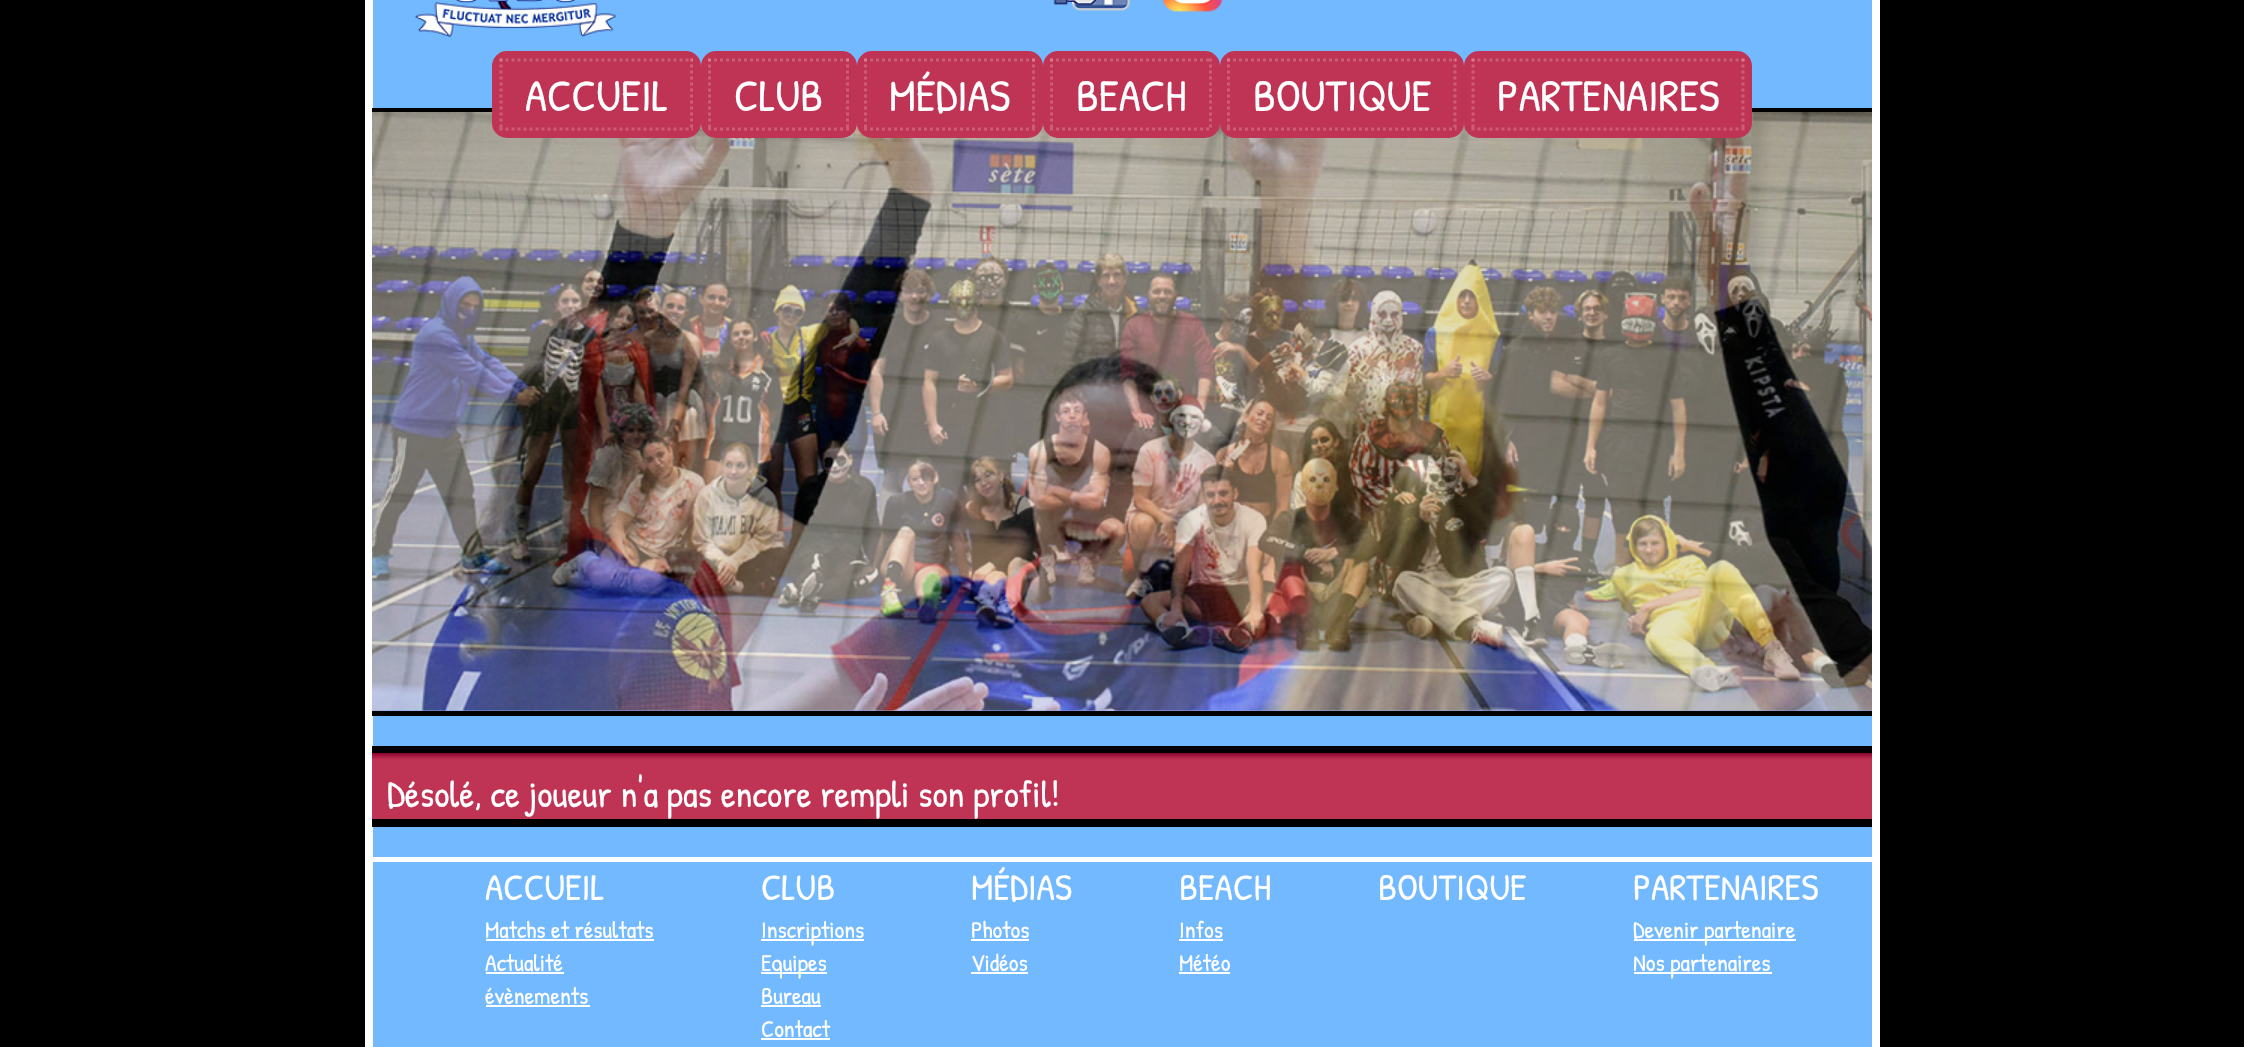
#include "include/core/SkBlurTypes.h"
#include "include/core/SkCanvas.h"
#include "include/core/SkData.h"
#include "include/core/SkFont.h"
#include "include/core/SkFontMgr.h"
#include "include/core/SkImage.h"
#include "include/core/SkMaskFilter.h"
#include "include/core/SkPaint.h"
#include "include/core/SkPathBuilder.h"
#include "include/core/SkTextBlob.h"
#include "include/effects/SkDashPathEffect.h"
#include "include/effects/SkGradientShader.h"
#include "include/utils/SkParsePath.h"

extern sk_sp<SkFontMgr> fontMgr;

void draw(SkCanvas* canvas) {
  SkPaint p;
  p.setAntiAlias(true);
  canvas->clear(SK_ColorBLACK);
  {
    const SkColor colors[] = {SkColorSetRGB(114, 185, 255), SkColorSetRGB(114, 185, 255), SkColorSetRGB(14, 85, 155)};
    const float stops[] = {0, 0.98f, 1};
    const SkPoint ends[] = {{1122, 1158}, {1122, -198}};
    p.setShader(SkGradientShader::MakeLinear(ends, colors, stops, 3, SkTileMode::kClamp));
    p.setAlpha(255);
  }
  canvas->drawRect(SkRect::MakeLTRB(373, 0, 1872, 1047), p);
  p.setStyle(SkPaint::kStroke_Style);
  p.setStrokeWidth(8);
  p.setShader(nullptr);
  p.setColor(SK_ColorWHITE);
  canvas->drawRect(SkRect::MakeLTRB(369, -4, 1876, 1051), p);
  canvas->drawImageRect(SkImages::DeferredFromEncodedData(SkData::MakeFromFileName("images/1.png")), SkRect::MakeLTRB(415, 0, 616, 38), SkSamplingOptions());
  canvas->drawImageRect(SkImages::DeferredFromEncodedData(SkData::MakeFromFileName("images/2.png")), SkRect::MakeLTRB(1053, 0, 1130, 11), SkSamplingOptions());
  canvas->drawImageRect(SkImages::DeferredFromEncodedData(SkData::MakeFromFileName("images/3.png")), SkRect::MakeLTRB(1162, 0, 1223, 12), SkSamplingOptions());
  p.setStyle(SkPaint::kFill_Style);
  p.setColor(SK_ColorBLACK);
  canvas->drawRect(SkRect::MakeLTRB(372, 108, 1872, 112), p);
  canvas->drawImageRect(SkImages::DeferredFromEncodedData(SkData::MakeFromFileName("images/4.png")), SkRect::MakeLTRB(372, 112, 1872, 711), SkSamplingOptions());
  canvas->drawImageRect(SkImages::DeferredFromEncodedData(SkData::MakeFromFileName("images/5.png")), SkRect::MakeLTRB(372, 112, 1872, 711), SkSamplingOptions());
  p.setColor(SkColorSetRGB(191, 52, 85));
  canvas->drawRoundRect(SkRect::MakeLTRB(496, 55, 697, 134), 11, 11, p);
  p.setStyle(SkPaint::kStroke_Style);
  canvas->drawRoundRect(SkRect::MakeLTRB(496, 55, 697, 134), 11, 11, p);
  p.setStrokeWidth(3);
  p.setColor(SkColorSetRGB(204, 93, 119));
  p.setPathEffect(SkDashPathEffect::Make({{3, 3}}, 0));
  canvas->drawPath(SkPathBuilder().moveTo(499.5f, 60).lineTo(693, 60).detach(), p);
  p.setPathEffect(nullptr);
  p.setColor(SkColorSetARGB(51, 255, 255, 255));
  p.setPathEffect(SkDashPathEffect::Make({{3, 3}}, 0));
  canvas->drawPath(SkPathBuilder().moveTo(691.5f, 58.5f).lineTo(691.5f, 130.5f).detach(), p);
  p.setPathEffect(nullptr);
  p.setPathEffect(SkDashPathEffect::Make({{3, 3}}, 0));
  canvas->drawPath(SkPathBuilder().moveTo(499.5f, 129).lineTo(693, 129).detach(), p);
  p.setPathEffect(nullptr);
  p.setPathEffect(SkDashPathEffect::Make({{3, 3}}, 0));
  canvas->drawPath(SkPathBuilder().moveTo(501, 58.5f).lineTo(501, 130.5f).detach(), p);
  p.setPathEffect(nullptr);
  p.setStyle(SkPaint::kFill_Style);
  p.setColor(SkColorSetRGB(191, 52, 85));
  canvas->drawRoundRect(SkRect::MakeLTRB(705, 55, 853, 134), 11, 11, p);
  p.setStyle(SkPaint::kStroke_Style);
  p.setStrokeWidth(8);
  canvas->drawRoundRect(SkRect::MakeLTRB(705, 55, 853, 134), 11, 11, p);
  p.setStrokeWidth(3);
  p.setColor(SkColorSetRGB(204, 93, 119));
  p.setPathEffect(SkDashPathEffect::Make({{3, 3}}, 0));
  canvas->drawPath(SkPathBuilder().moveTo(708, 60).lineTo(849, 60).detach(), p);
  p.setPathEffect(nullptr);
  p.setColor(SkColorSetARGB(51, 255, 255, 255));
  p.setPathEffect(SkDashPathEffect::Make({{3, 3}}, 0));
  canvas->drawPath(SkPathBuilder().moveTo(847.5f, 58.5f).lineTo(847.5f, 130.5f).detach(), p);
  p.setPathEffect(nullptr);
  p.setPathEffect(SkDashPathEffect::Make({{3, 3}}, 0));
  canvas->drawPath(SkPathBuilder().moveTo(708, 129).lineTo(849, 129).detach(), p);
  p.setPathEffect(nullptr);
  p.setPathEffect(SkDashPathEffect::Make({{3, 3}}, 0));
  canvas->drawPath(SkPathBuilder().moveTo(709.5f, 58.5f).lineTo(709.5f, 130.5f).detach(), p);
  p.setPathEffect(nullptr);
  p.setStyle(SkPaint::kFill_Style);
  p.setColor(SkColorSetRGB(191, 52, 85));
  canvas->drawRoundRect(SkRect::MakeLTRB(861, 55, 1039, 134), 11, 11, p);
  p.setStyle(SkPaint::kStroke_Style);
  p.setStrokeWidth(8);
  canvas->drawRoundRect(SkRect::MakeLTRB(861, 55, 1039, 134), 11, 11, p);
  p.setStrokeWidth(3);
  p.setColor(SkColorSetRGB(204, 93, 119));
  p.setPathEffect(SkDashPathEffect::Make({{3, 3}}, 0));
  canvas->drawPath(SkPathBuilder().moveTo(864, 60).lineTo(1035, 60).detach(), p);
  p.setPathEffect(nullptr);
  p.setColor(SkColorSetARGB(51, 255, 255, 255));
  p.setPathEffect(SkDashPathEffect::Make({{3, 3}}, 0));
  canvas->drawPath(SkPathBuilder().moveTo(1033.5f, 58.5f).lineTo(1033.5f, 130.5f).detach(), p);
  p.setPathEffect(nullptr);
  p.setPathEffect(SkDashPathEffect::Make({{3, 3}}, 0));
  canvas->drawPath(SkPathBuilder().moveTo(864, 129).lineTo(1035, 129).detach(), p);
  p.setPathEffect(nullptr);
  p.setPathEffect(SkDashPathEffect::Make({{3, 3}}, 0));
  canvas->drawPath(SkPathBuilder().moveTo(865.5f, 58.5f).lineTo(865.5f, 130.5f).detach(), p);
  p.setPathEffect(nullptr);
  p.setStyle(SkPaint::kFill_Style);
  p.setColor(SkColorSetRGB(191, 52, 85));
  canvas->drawRoundRect(SkRect::MakeLTRB(1047, 55, 1216, 134), 11, 11, p);
  p.setStyle(SkPaint::kStroke_Style);
  p.setStrokeWidth(8);
  canvas->drawRoundRect(SkRect::MakeLTRB(1047, 55, 1216, 134), 11, 11, p);
  p.setStrokeWidth(3);
  p.setColor(SkColorSetRGB(204, 93, 119));
  p.setPathEffect(SkDashPathEffect::Make({{3, 3}}, 0));
  canvas->drawPath(SkPathBuilder().moveTo(1050, 60).lineTo(1212, 60).detach(), p);
  p.setPathEffect(nullptr);
  p.setPathEffect(SkDashPathEffect::Make({{3, 3}}, 0));
  canvas->drawPath(SkPathBuilder().moveTo(1210.5f, 58.5f).lineTo(1210.5f, 130.5f).detach(), p);
  p.setPathEffect(nullptr);
  p.setPathEffect(SkDashPathEffect::Make({{3, 3}}, 0));
  canvas->drawPath(SkPathBuilder().moveTo(1050, 129).lineTo(1212, 129).detach(), p);
  p.setPathEffect(nullptr);
  p.setColor(SkColorSetARGB(51, 255, 255, 255));
  p.setPathEffect(SkDashPathEffect::Make({{3, 3}}, 0));
  canvas->drawPath(SkPathBuilder().moveTo(1051.5f, 58.5f).lineTo(1051.5f, 130.5f).detach(), p);
  p.setPathEffect(nullptr);
  p.setStyle(SkPaint::kFill_Style);
  p.setColor(SkColorSetRGB(191, 52, 85));
  canvas->drawRoundRect(SkRect::MakeLTRB(1224, 55, 1460, 134), 11, 11, p);
  p.setStyle(SkPaint::kStroke_Style);
  p.setStrokeWidth(8);
  canvas->drawRoundRect(SkRect::MakeLTRB(1224, 55, 1460, 134), 11, 11, p);
  p.setStrokeWidth(3);
  p.setColor(SkColorSetRGB(204, 93, 119));
  p.setPathEffect(SkDashPathEffect::Make({{3, 3}}, 0));
  canvas->drawPath(SkPathBuilder().moveTo(1227, 60).lineTo(1456.5f, 60).detach(), p);
  p.setPathEffect(nullptr);
  p.setColor(SkColorSetARGB(51, 255, 255, 255));
  p.setPathEffect(SkDashPathEffect::Make({{3, 3}}, 0));
  canvas->drawPath(SkPathBuilder().moveTo(1455, 58.5f).lineTo(1455, 130.5f).detach(), p);
  p.setPathEffect(nullptr);
  p.setPathEffect(SkDashPathEffect::Make({{3, 3}}, 0));
  canvas->drawPath(SkPathBuilder().moveTo(1227, 129).lineTo(1456.5f, 129).detach(), p);
  p.setPathEffect(nullptr);
  p.setPathEffect(SkDashPathEffect::Make({{3, 3}}, 0));
  canvas->drawPath(SkPathBuilder().moveTo(1228.5f, 58.5f).lineTo(1228.5f, 130.5f).detach(), p);
  p.setPathEffect(nullptr);
  p.setStyle(SkPaint::kFill_Style);
  p.setColor(SkColorSetRGB(191, 52, 85));
  canvas->drawRoundRect(SkRect::MakeLTRB(1468, 55, 1748, 134), 11, 11, p);
  p.setStyle(SkPaint::kStroke_Style);
  p.setStrokeWidth(8);
  canvas->drawRoundRect(SkRect::MakeLTRB(1468, 55, 1748, 134), 11, 11, p);
  p.setStrokeWidth(3);
  p.setColor(SkColorSetRGB(204, 93, 119));
  p.setPathEffect(SkDashPathEffect::Make({{3, 3}}, 0));
  canvas->drawPath(SkPathBuilder().moveTo(1471.5f, 60).lineTo(1744.5f, 60).detach(), p);
  p.setPathEffect(nullptr);
  p.setColor(SkColorSetARGB(51, 255, 255, 255));
  p.setPathEffect(SkDashPathEffect::Make({{3, 3}}, 0));
  canvas->drawPath(SkPathBuilder().moveTo(1743, 58.5f).lineTo(1743, 130.5f).detach(), p);
  p.setPathEffect(nullptr);
  p.setPathEffect(SkDashPathEffect::Make({{3, 3}}, 0));
  canvas->drawPath(SkPathBuilder().moveTo(1471.5f, 129).lineTo(1744.5f, 129).detach(), p);
  p.setPathEffect(nullptr);
  p.setPathEffect(SkDashPathEffect::Make({{3, 3}}, 0));
  canvas->drawPath(SkPathBuilder().moveTo(1473, 58.5f).lineTo(1473, 130.5f).detach(), p);
  p.setPathEffect(nullptr);
  p.setStyle(SkPaint::kFill_Style);
  p.setColor(SK_ColorBLACK);
  canvas->drawRect(SkRect::MakeLTRB(372, 711, 1872, 716), p);
  {
    const SkColor colors[] = {SkColorSetRGB(191, 52, 85), SkColorSetRGB(191, 52, 85), SkColorSetRGB(141, 2, 45)};
    const float stops[] = {0, 0.9f, 1};
    const SkPoint ends[] = {{1122, 819}, {1122, 753}};
    p.setShader(SkGradientShader::MakeLinear(ends, colors, stops, 3, SkTileMode::kClamp));
    p.setAlpha(255);
  }
  canvas->drawRect(SkRect::MakeLTRB(372, 753, 1872, 819), p);
  p.setShader(nullptr);
  p.setColor(SK_ColorBLACK);
  canvas->drawRect(SkRect::MakeLTRB(372, 746, 1872, 753), p);
  canvas->drawRect(SkRect::MakeLTRB(372, 819, 1872, 827), p);
  p.setColor(SK_ColorWHITE);
  canvas->drawRect(SkRect::MakeLTRB(372, 857, 1872, 862), p);
  canvas->drawRect(SkRect::MakeLTRB(486, 939, 654, 941), p);
  canvas->drawRect(SkRect::MakeLTRB(486, 972, 564, 974), p);
  canvas->drawRect(SkRect::MakeLTRB(486, 1005, 590, 1007), p);
  canvas->drawRect(SkRect::MakeLTRB(761, 939, 864, 941), p);
  canvas->drawRect(SkRect::MakeLTRB(761, 972, 827, 974), p);
  canvas->drawRect(SkRect::MakeLTRB(761, 1005, 821, 1007), p);
  canvas->drawRect(SkRect::MakeLTRB(761, 1038, 830, 1040), p);
  canvas->drawRect(SkRect::MakeLTRB(971, 939, 1029, 941), p);
  canvas->drawRect(SkRect::MakeLTRB(971, 972, 1028, 974), p);
  canvas->drawRect(SkRect::MakeLTRB(1179, 939, 1223, 941), p);
  canvas->drawRect(SkRect::MakeLTRB(1179, 972, 1230, 974), p);
  canvas->drawRect(SkRect::MakeLTRB(1634, 939, 1796, 941), p);
  canvas->drawRect(SkRect::MakeLTRB(1634, 972, 1772, 974), p);
  SkFont font1(fontMgr->matchFamilyStyle("Patrick Hand", SkFontStyle::Normal()), 45);
  font1.setSubpixel(true);
  canvas->drawString("ACCUEIL", 525, 111, font1, p);
  canvas->drawString("CLUB", 734, 111, font1, p);
  canvas->drawString("MÉDIAS", 889, 111, font1, p);
  canvas->drawString("BEACH", 1076, 111, font1, p);
  canvas->drawString("BOUTIQUE", 1253, 111, font1, p);
  canvas->drawString("PARTENAIRES", 1497, 111, font1, p);
  SkFont font2(fontMgr->matchFamilyStyle("Patrick Hand", SkFontStyle::Normal()), 37.5f);
  font2.setSubpixel(true);
  canvas->drawString("Désolé, ce joueur n'a pas encore rempli son profil!", 387, 807, font2, p);
  canvas->drawString("ACCUEIL", 485, 900, font2, p);
  SkFont font3(fontMgr->matchFamilyStyle("Patrick Hand", SkFontStyle::Normal()), 24);
  font3.setSubpixel(true);
  canvas->drawString("Matchs et résultats", 485, 938, font3, p);
  canvas->drawString("Actualité", 485, 971, font3, p);
  canvas->drawString("évènements", 485, 1004, font3, p);
  canvas->drawString("CLUB", 761, 900, font2, p);
  canvas->drawString("Inscriptions", 761, 938, font3, p);
  canvas->drawString("Equipes", 761, 971, font3, p);
  canvas->drawString("Bureau", 761, 1004, font3, p);
  canvas->drawString("Contact", 761, 1037, font3, p);
  canvas->drawString("MÉDIAS", 971, 900, font2, p);
  canvas->drawString("Photos", 971, 938, font3, p);
  canvas->drawString("Vidéos", 971, 971, font3, p);
  canvas->drawString("BEACH", 1179, 900, font2, p);
  canvas->drawString("Infos", 1179, 938, font3, p);
  canvas->drawString("Météo", 1179, 971, font3, p);
  canvas->drawString("BOUTIQUE", 1378, 900, font2, p);
  canvas->drawString("PARTENAIRES", 1633, 900, font2, p);
  canvas->drawString("Devenir partenaire", 1633, 938, font3, p);
  canvas->drawString("Nos partenaires", 1633, 971, font3, p);
}
